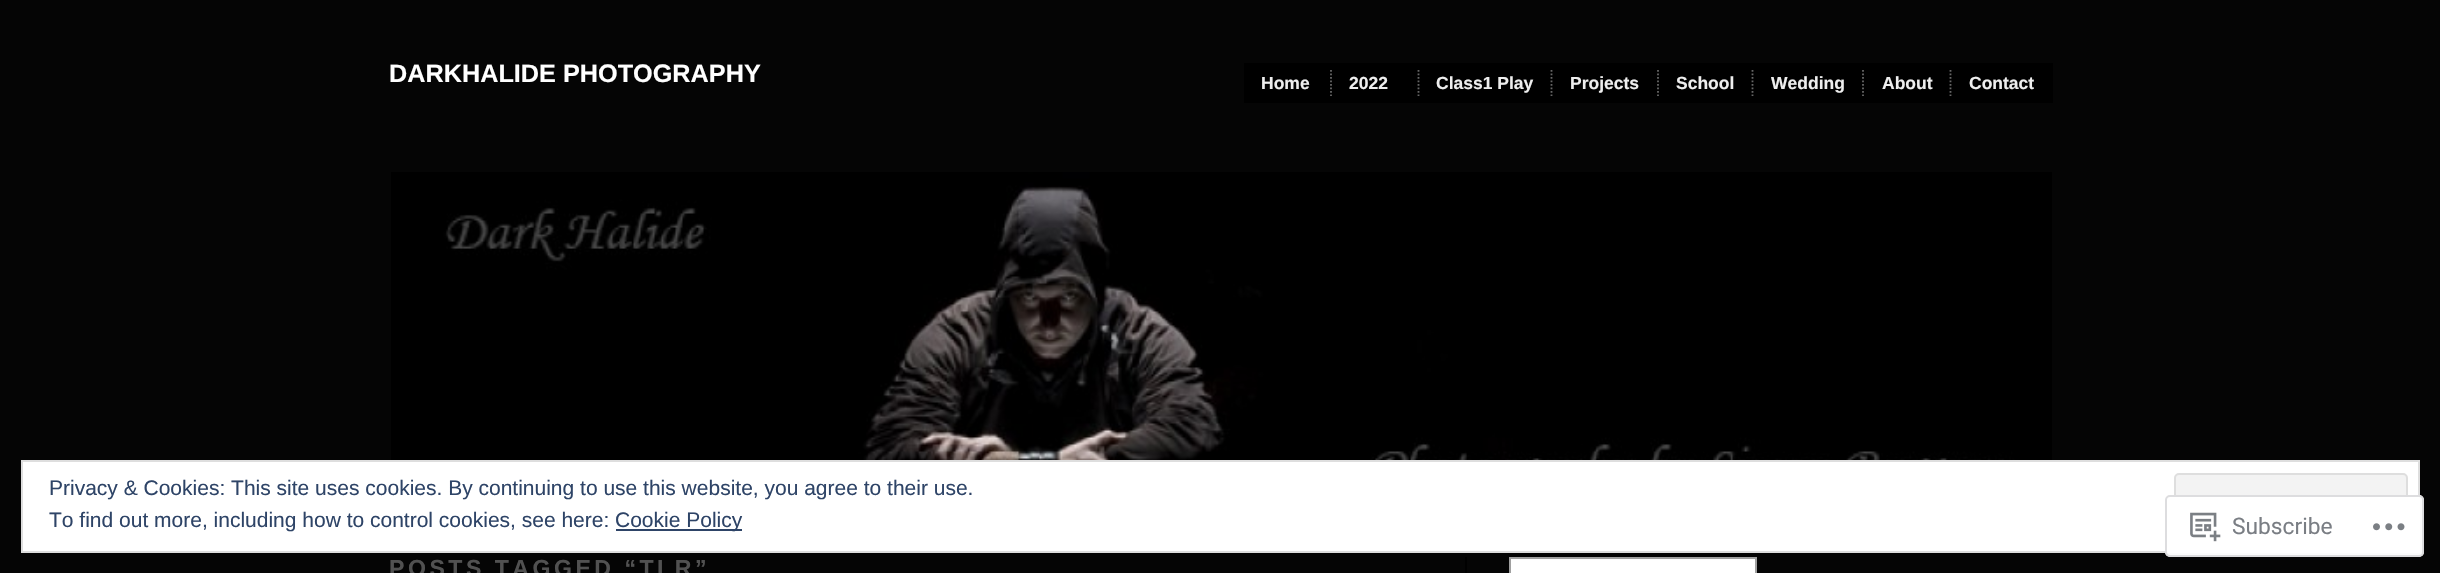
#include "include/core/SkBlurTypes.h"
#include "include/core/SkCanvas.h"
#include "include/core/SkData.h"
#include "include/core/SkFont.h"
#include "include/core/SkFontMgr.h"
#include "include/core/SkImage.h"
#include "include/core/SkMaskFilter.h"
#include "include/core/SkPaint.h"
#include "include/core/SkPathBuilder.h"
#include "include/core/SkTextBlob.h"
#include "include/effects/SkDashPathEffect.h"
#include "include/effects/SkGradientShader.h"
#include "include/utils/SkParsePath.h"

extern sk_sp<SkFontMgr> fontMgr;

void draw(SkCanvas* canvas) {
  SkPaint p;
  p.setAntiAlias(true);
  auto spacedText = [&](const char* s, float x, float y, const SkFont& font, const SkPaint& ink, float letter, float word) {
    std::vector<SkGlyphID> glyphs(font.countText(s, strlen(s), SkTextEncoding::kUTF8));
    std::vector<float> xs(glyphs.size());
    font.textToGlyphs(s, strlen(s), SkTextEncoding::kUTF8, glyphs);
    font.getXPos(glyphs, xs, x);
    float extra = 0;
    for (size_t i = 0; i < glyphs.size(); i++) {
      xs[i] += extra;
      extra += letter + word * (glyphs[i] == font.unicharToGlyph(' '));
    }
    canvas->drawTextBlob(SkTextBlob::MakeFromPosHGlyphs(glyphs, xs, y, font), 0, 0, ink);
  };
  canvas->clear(SkColorSetRGB(5, 5, 5));
  p.setColor(SK_ColorBLACK);
  canvas->drawRect(SkRect::MakeLTRB(1244, 63, 2053, 103), p);
  p.setStyle(SkPaint::kStroke_Style);
  p.setStrokeWidth(1.8f);
  p.setColor(SkColorSetRGB(102, 102, 102));
  p.setPathEffect(SkDashPathEffect::Make({{1.75f, 1.75f}}, 0));
  canvas->drawPath(SkPathBuilder().moveTo(1331, 70).lineTo(1331, 96).detach(), p);
  p.setPathEffect(nullptr);
  p.setPathEffect(SkDashPathEffect::Make({{1.75f, 1.75f}}, 0));
  canvas->drawPath(SkPathBuilder().moveTo(1418.5f, 70).lineTo(1418.5f, 96).detach(), p);
  p.setPathEffect(nullptr);
  p.setPathEffect(SkDashPathEffect::Make({{1.75f, 1.75f}}, 0));
  canvas->drawPath(SkPathBuilder().moveTo(1551.5f, 70).lineTo(1551.5f, 96).detach(), p);
  p.setPathEffect(nullptr);
  p.setPathEffect(SkDashPathEffect::Make({{1.75f, 1.75f}}, 0));
  canvas->drawPath(SkPathBuilder().moveTo(1658, 70).lineTo(1658, 96).detach(), p);
  p.setPathEffect(nullptr);
  p.setPathEffect(SkDashPathEffect::Make({{1.75f, 1.75f}}, 0));
  canvas->drawPath(SkPathBuilder().moveTo(1752.5f, 70).lineTo(1752.5f, 96).detach(), p);
  p.setPathEffect(nullptr);
  p.setPathEffect(SkDashPathEffect::Make({{1.75f, 1.75f}}, 0));
  canvas->drawPath(SkPathBuilder().moveTo(1863, 70).lineTo(1863, 96).detach(), p);
  p.setPathEffect(nullptr);
  p.setPathEffect(SkDashPathEffect::Make({{1.75f, 1.75f}}, 0));
  canvas->drawPath(SkPathBuilder().moveTo(1950.5f, 70).lineTo(1950.5f, 96).detach(), p);
  p.setPathEffect(nullptr);
  p.setStyle(SkPaint::kFill_Style);
  p.setColor(SK_ColorWHITE);
  canvas->drawRect(SkRect::MakeLTRB(22, 461, 2419, 552), p);
  p.setStyle(SkPaint::kStroke_Style);
  p.setStrokeWidth(2);
  p.setColor(SkColorSetRGB(222, 222, 222));
  canvas->drawRect(SkRect::MakeLTRB(22, 461, 2419, 552), p);
  p.setStyle(SkPaint::kFill_Style);
  p.setColor(SkColorSetRGB(243, 243, 243));
  canvas->drawRoundRect(SkRect::MakeLTRB(2175, 474, 2407, 540), 4, 4, p);
  p.setStyle(SkPaint::kStroke_Style);
  p.setColor(SkColorSetRGB(222, 222, 222));
  canvas->drawRoundRect(SkRect::MakeLTRB(2175, 474, 2407, 540), 4, 4, p);
  p.setStyle(SkPaint::kFill_Style);
  p.setColor(SkColorSetRGB(46, 68, 103));
  canvas->drawRect(SkRect::MakeLTRB(616, 529, 742, 531), p);
  p.setColor(SkColorSetARGB(250, 255, 255, 255));
  canvas->drawRoundRect(SkRect::MakeLTRB(2165, 495, 2424, 557), 5, 5, p);
  p.setStyle(SkPaint::kStroke_Style);
  p.setColor(SkColorSetARGB(250, 220, 220, 222));
  canvas->drawRoundRect(SkRect::MakeLTRB(2166, 496, 2423, 556), 4, 4, p);
  canvas->drawImageRect(SkImages::DeferredFromEncodedData(SkData::MakeFromFileName("images/1.png")), SkRect::MakeLTRB(2190, 512, 2221, 542), SkSamplingOptions());
  canvas->drawImageRect(SkImages::DeferredFromEncodedData(SkData::MakeFromFileName("images/2.png")), SkRect::MakeLTRB(2373, 523, 2405, 531), SkSamplingOptions());
  canvas->drawImageRect(SkImages::DeferredFromEncodedData(SkData::MakeFromFileName("images/3.png")), SkRect::MakeLTRB(391, 172, 2052, 460), SkSamplingOptions());
  p.setStyle(SkPaint::kFill_Style);
  p.setColor(SK_ColorBLACK);
  canvas->drawRect(SkRect::MakeLTRB(1465, 557, 1467, 573), p);
  p.setColor(SK_ColorWHITE);
  canvas->drawRect(SkRect::MakeLTRB(1510, 558, 1756, 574), p);
  p.setStyle(SkPaint::kStroke_Style);
  p.setColor(SkColorSetRGB(160, 160, 160));
  canvas->drawRect(SkRect::MakeLTRB(1510, 558, 1756, 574), p);
  SkFont font1(fontMgr->matchFamilyStyle("Liberation Sans", SkFontStyle::Bold()), 25.25f);
  font1.setSubpixel(true);
  p.setStyle(SkPaint::kFill_Style);
  p.setColor(SK_ColorWHITE);
  canvas->drawString("DARKHALIDE PHOTOGRAPHY", 389, 82, font1, p);
  SkFont font2(fontMgr->matchFamilyStyle("Liberation Sans", SkFontStyle::Bold()), 17.5f);
  font2.setSubpixel(true);
  p.setColor(SkColorSetRGB(238, 238, 238));
  canvas->drawString("Home", 1261, 89, font2, p);
  canvas->drawString("2022", 1349, 89, font2, p);
  canvas->drawString("Class1 Play", 1436, 89, font2, p);
  canvas->drawString("Projects", 1570, 89, font2, p);
  canvas->drawString("School", 1676, 89, font2, p);
  canvas->drawString("Wedding", 1771, 89, font2, p);
  canvas->drawString("About", 1882, 89, font2, p);
  canvas->drawString("Contact", 1969, 89, font2, p);
  SkFont font3(fontMgr->matchFamilyStyle("Liberation Sans", SkFontStyle::Normal()), 21);
  font3.setSubpixel(true);
  p.setColor(SkColorSetRGB(46, 68, 103));
  canvas->drawString("Privacy & Cookies: This site uses cookies. By continuing to use this website, you agree to their use.", 49, 495, font3, p);
  canvas->drawString("To find out more, including how to control cookies, see here:", 49, 527, font3, p);
  canvas->drawString("Cookie Policy", 615, 527, font3, p);
  SkFont font4(fontMgr->matchFamilyStyle("Roboto", SkFontStyle::Normal()), 22.75f);
  font4.setSubpixel(true);
  p.setColor(SkColorSetRGB(122, 126, 132));
  canvas->drawString("Subscribe", 2232, 534, font4, p);
  SkFont font5(fontMgr->matchFamilyStyle("Liberation Sans", SkFontStyle::Bold()), 23.1f);
  font5.setSubpixel(true);
  p.setColor(SkColorSetRGB(81, 81, 81));
  spacedText("POSTS TAGGED “TLR”", 389, 576, font5, p, 3.5f, 0);
}
